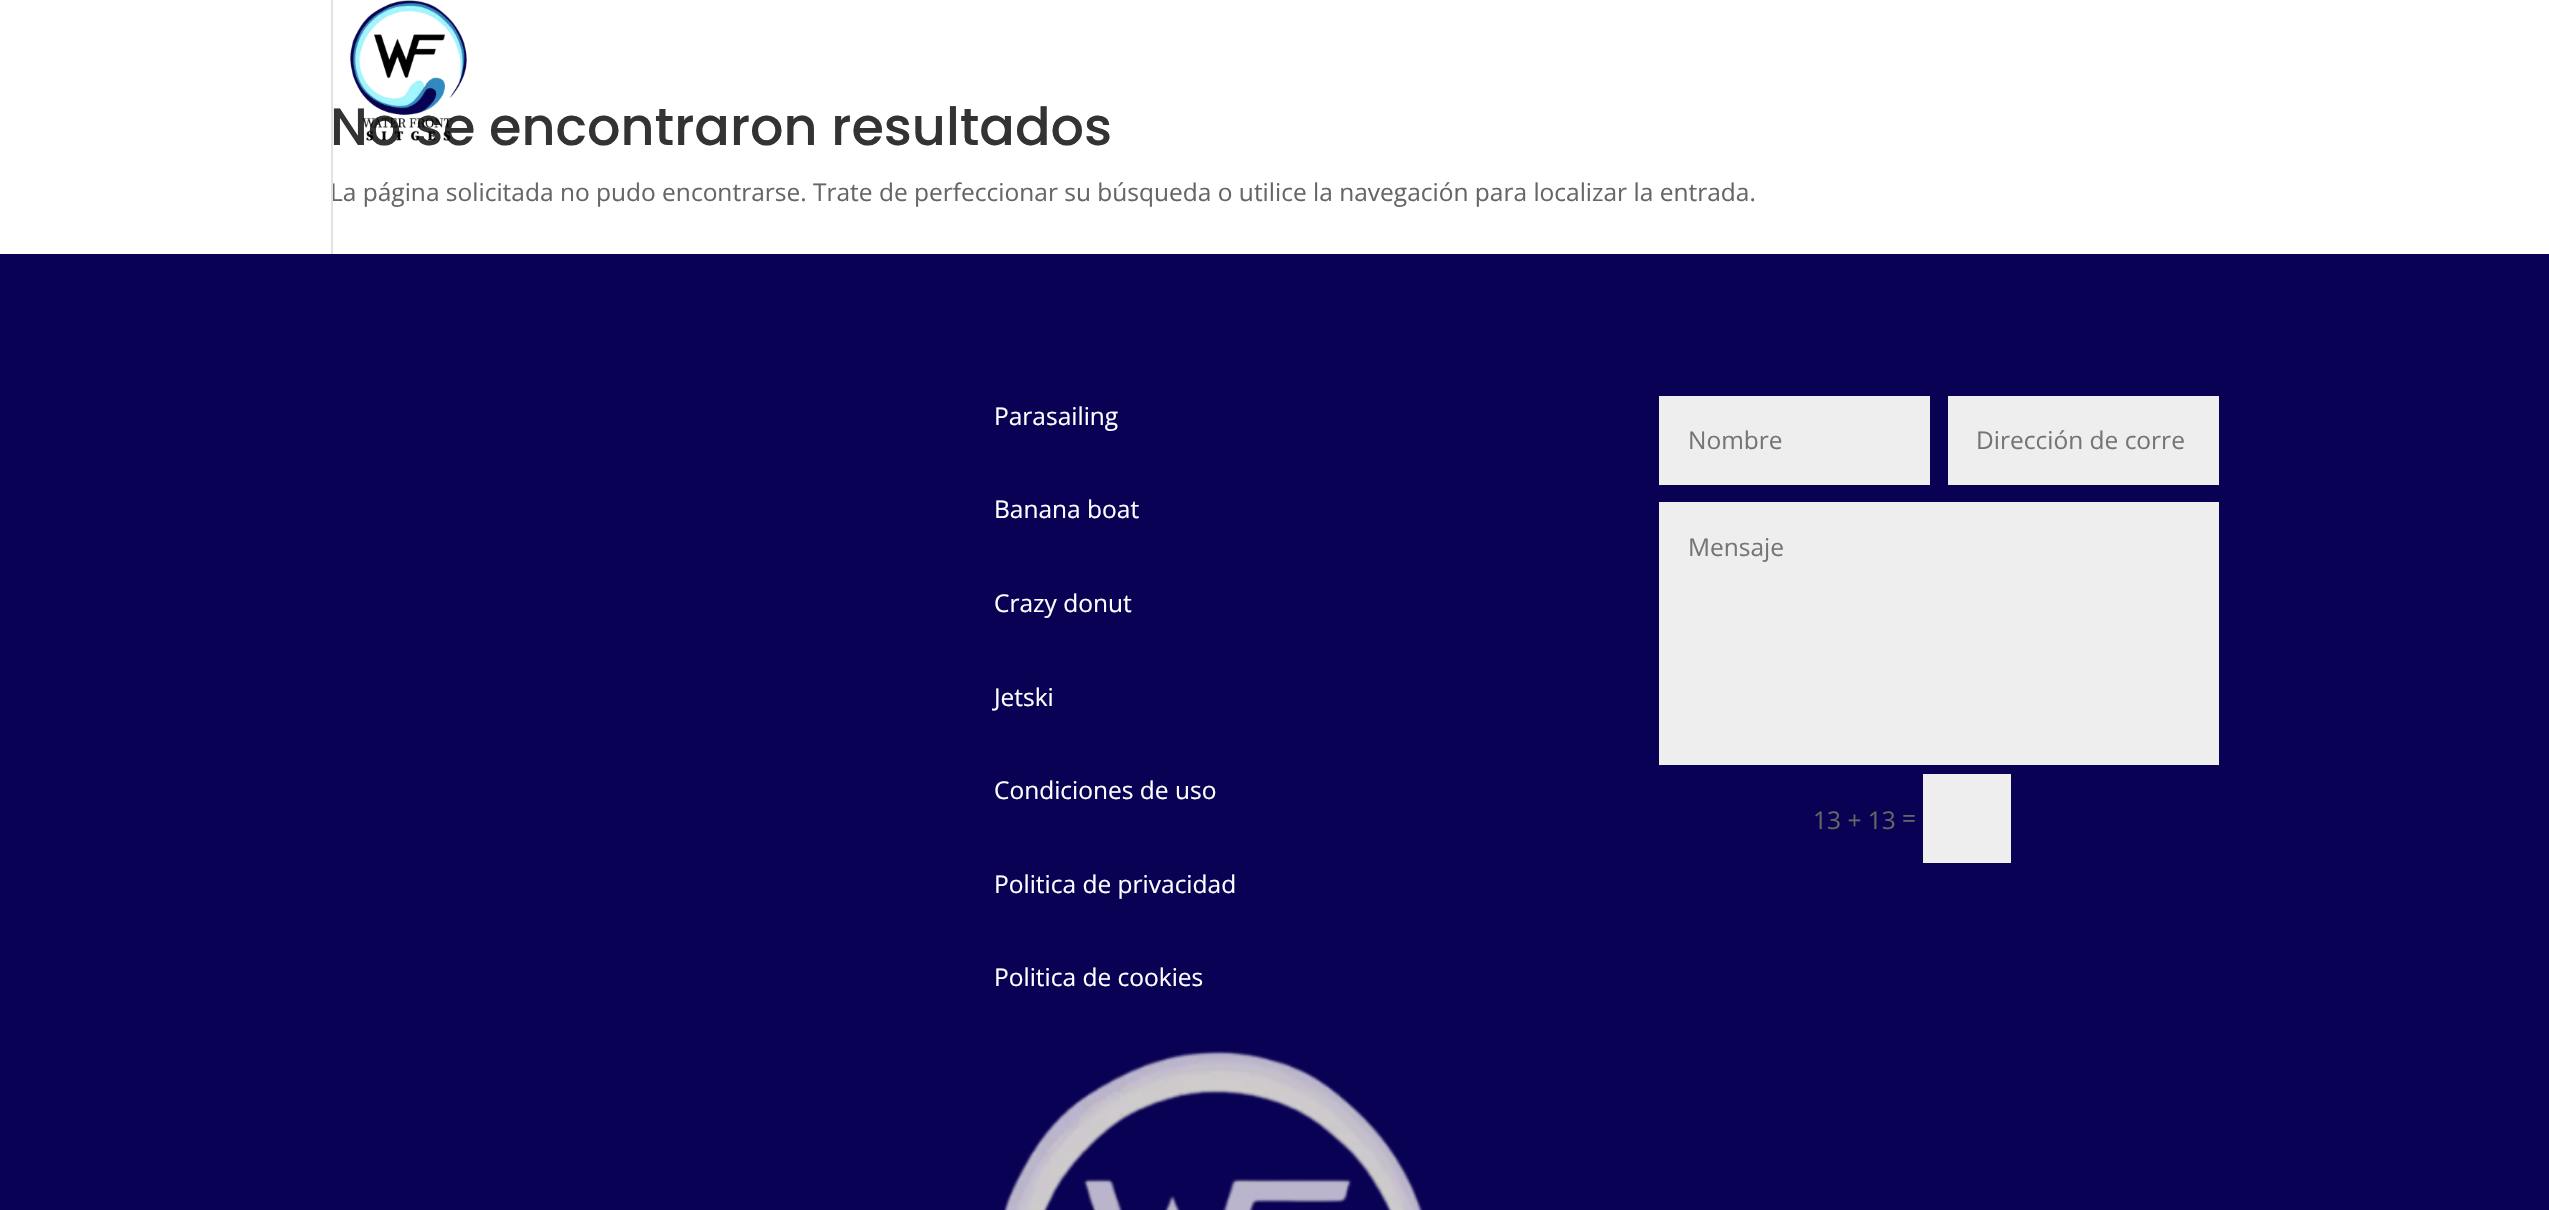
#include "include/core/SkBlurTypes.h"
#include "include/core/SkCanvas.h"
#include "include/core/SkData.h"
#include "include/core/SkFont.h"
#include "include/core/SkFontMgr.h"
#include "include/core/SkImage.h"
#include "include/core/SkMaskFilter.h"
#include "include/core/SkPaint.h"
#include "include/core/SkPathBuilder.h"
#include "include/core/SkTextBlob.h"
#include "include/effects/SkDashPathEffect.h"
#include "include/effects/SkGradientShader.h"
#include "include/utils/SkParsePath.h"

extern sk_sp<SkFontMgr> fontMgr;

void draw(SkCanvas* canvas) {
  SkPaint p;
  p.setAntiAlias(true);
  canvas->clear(SK_ColorWHITE);
  p.setColor(SkColorSetRGB(9, 1, 83));
  canvas->drawRect(SkRect::MakeLTRB(0, 254, 2549, 1210), p);
  canvas->drawImageRect(SkImages::DeferredFromEncodedData(SkData::MakeFromFileName("images/2.png")), SkRect::MakeLTRB(1004, 1051, 1423, 1210), SkSamplingOptions());
  p.setColor(SkColorSetRGB(238, 238, 238));
  canvas->drawRect(SkRect::MakeLTRB(1659, 396, 1930, 485), p);
  canvas->drawRect(SkRect::MakeLTRB(1948, 396, 2219, 485), p);
  canvas->drawRect(SkRect::MakeLTRB(1659, 502, 2219, 765), p);
  canvas->drawRect(SkRect::MakeLTRB(1923, 774, 2011, 863), p);
  SkFont font1(fontMgr->matchFamilyStyle("Poppins", SkFontStyle(500, SkFontStyle::kNormal_Width, SkFontStyle::kUpright_Slant)), 52.5f);
  font1.setSubpixel(true);
  p.setColor(SkColorSetRGB(51, 51, 51));
  canvas->drawString("No se encontraron resultados", 330, 145, font1, p);
  canvas->drawImageRect(SkImages::DeferredFromEncodedData(SkData::MakeFromFileName("images/1.png")), SkRect::MakeLTRB(350, 0, 467, 141), SkSamplingOptions());
  SkFont font2(fontMgr->matchFamilyStyle("Open Sans", SkFontStyle::Normal()), 24.5f);
  font2.setSubpixel(true);
  p.setColor(SkColorSetRGB(102, 102, 102));
  canvas->drawString("La página solicitada no pudo encontrarse. Trate de perfeccionar su búsqueda o utilice la navegación para localizar la entrada.", 330, 201, font2, p);
  p.setColor(SkColorSetRGB(226, 226, 226));
  canvas->drawRect(SkRect::MakeLTRB(331, 0, 333, 254), p);
  p.setColor(SK_ColorWHITE);
  canvas->drawString("Parasailing", 994, 425, font2, p);
  canvas->drawString("Banana boat", 994, 518, font2, p);
  canvas->drawString("Crazy donut", 994, 612, font2, p);
  canvas->drawString("Jetski", 994, 706, font2, p);
  canvas->drawString("Condiciones de uso", 994, 799, font2, p);
  canvas->drawString("Politica de privacidad", 994, 893, font2, p);
  canvas->drawString("Politica de cookies", 994, 986, font2, p);
  p.setColor(SkColorSetRGB(117, 117, 117));
  canvas->drawString("Nombre", 1688, 449, font2, p);
  canvas->drawString("Dirección de corre", 1976, 449, font2, p);
  canvas->drawString("Mensaje", 1688, 556, font2, p);
  p.setColor(SkColorSetRGB(102, 102, 102));
  canvas->drawString("13 + 13", 1813, 829, font2, p);
  canvas->drawString("=", 1902, 827, font2, p);
}
